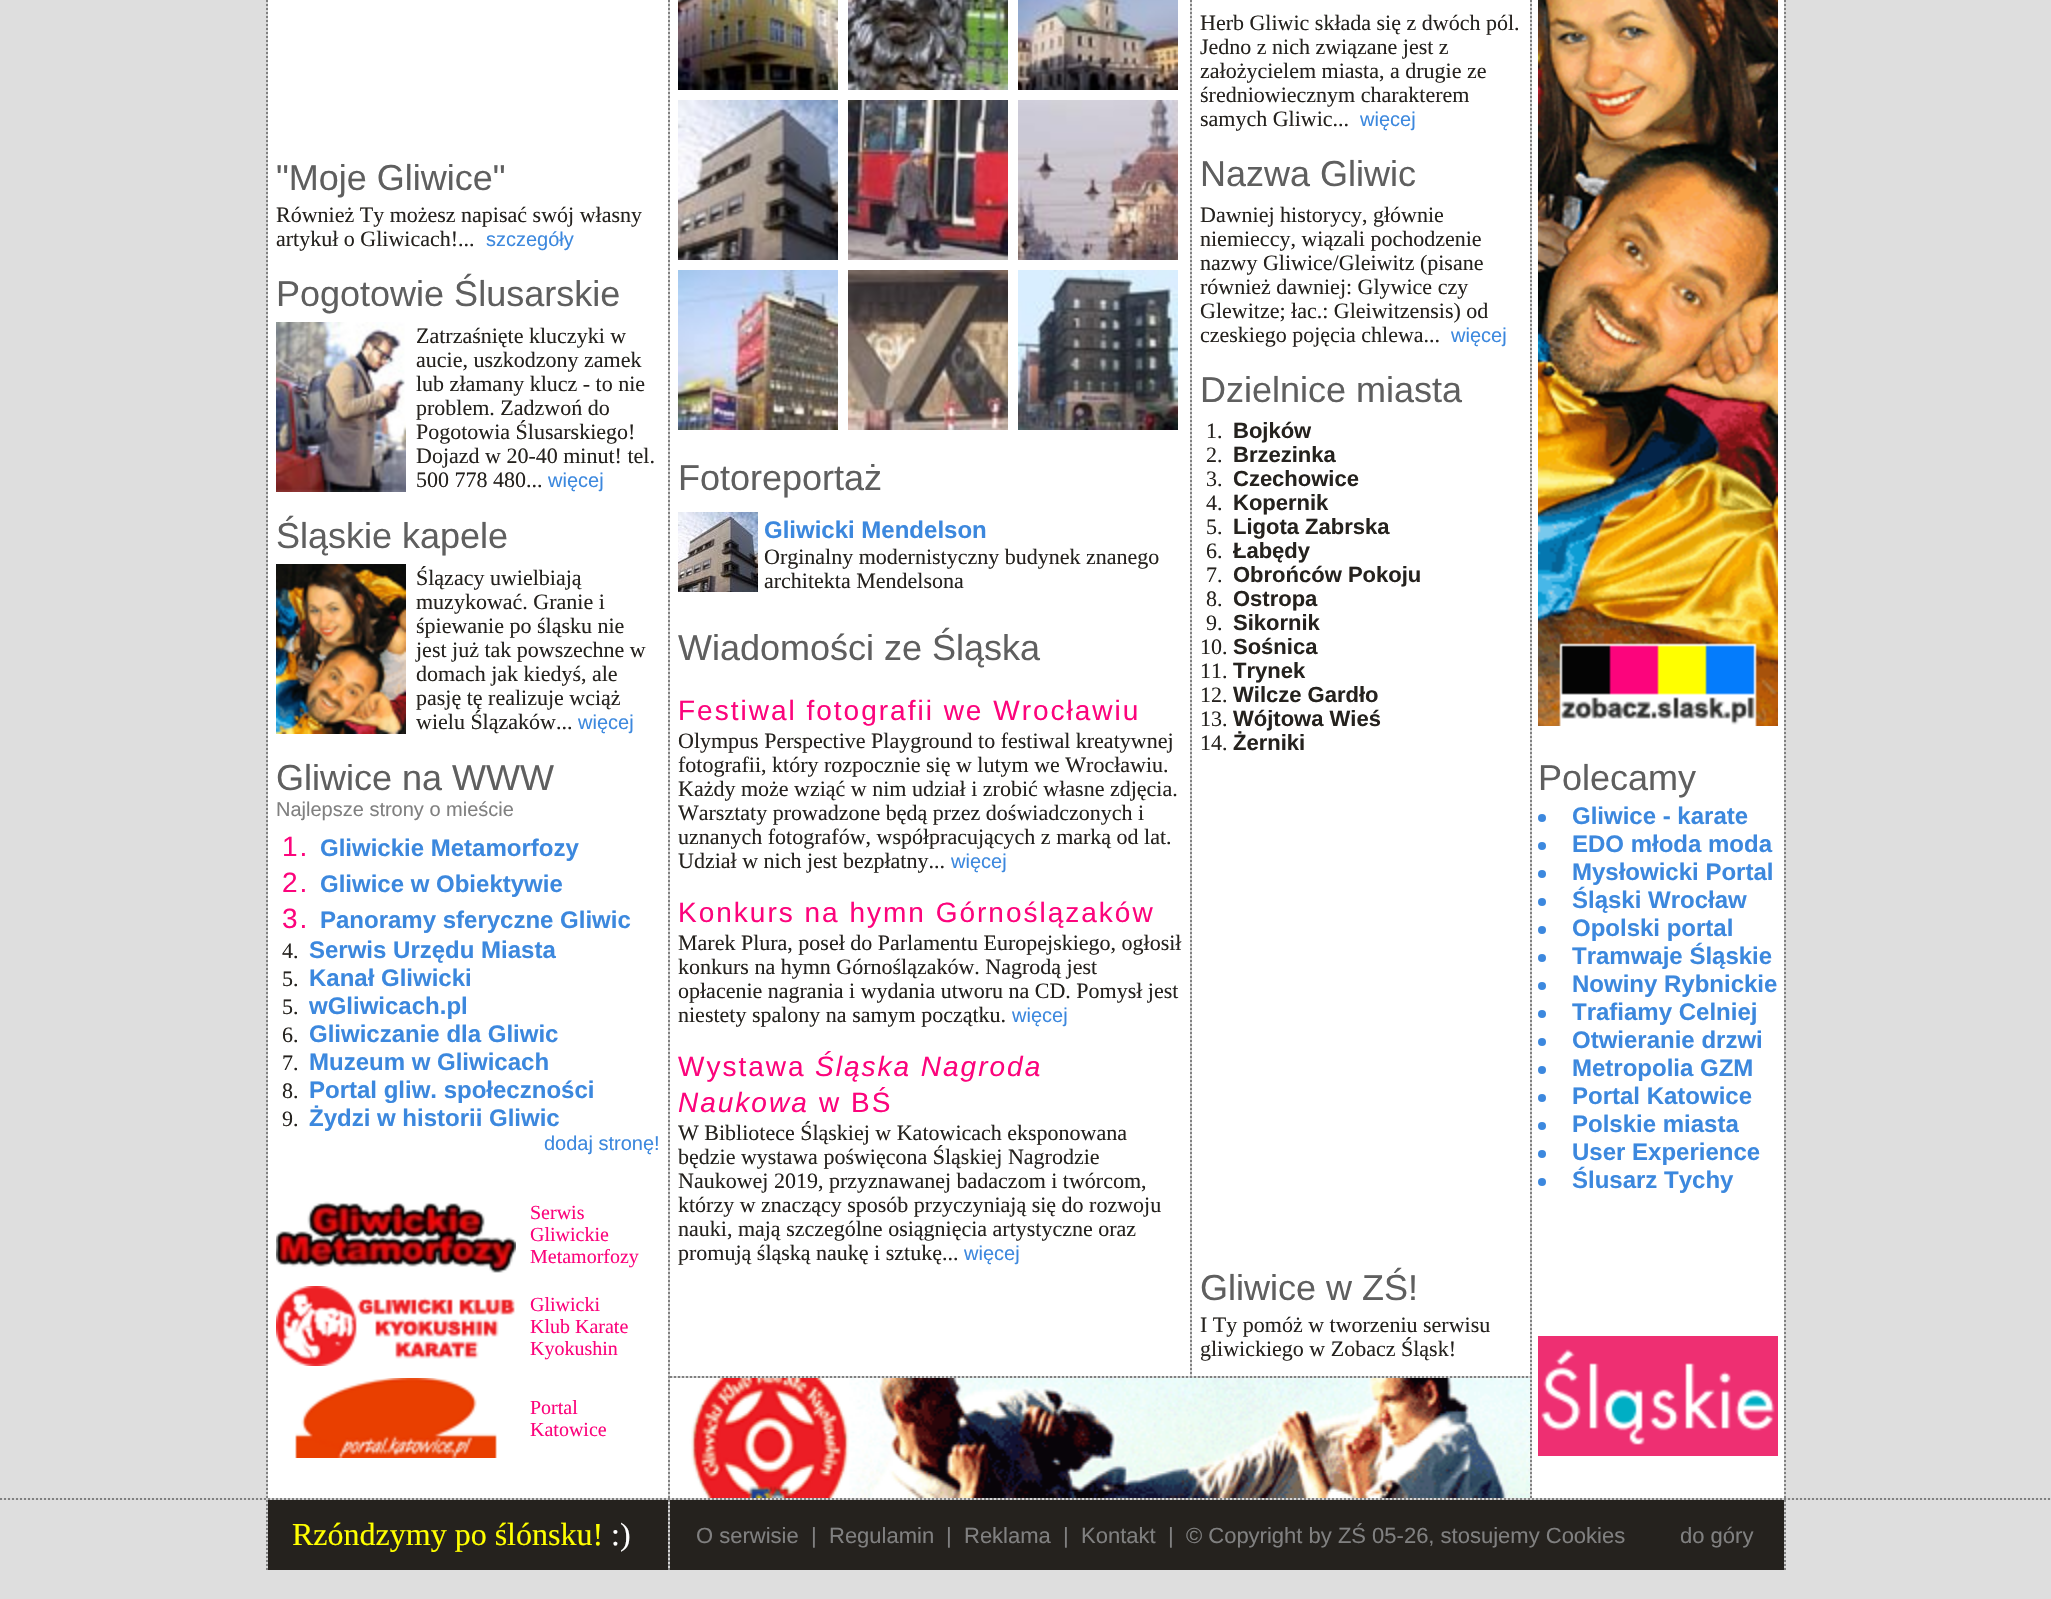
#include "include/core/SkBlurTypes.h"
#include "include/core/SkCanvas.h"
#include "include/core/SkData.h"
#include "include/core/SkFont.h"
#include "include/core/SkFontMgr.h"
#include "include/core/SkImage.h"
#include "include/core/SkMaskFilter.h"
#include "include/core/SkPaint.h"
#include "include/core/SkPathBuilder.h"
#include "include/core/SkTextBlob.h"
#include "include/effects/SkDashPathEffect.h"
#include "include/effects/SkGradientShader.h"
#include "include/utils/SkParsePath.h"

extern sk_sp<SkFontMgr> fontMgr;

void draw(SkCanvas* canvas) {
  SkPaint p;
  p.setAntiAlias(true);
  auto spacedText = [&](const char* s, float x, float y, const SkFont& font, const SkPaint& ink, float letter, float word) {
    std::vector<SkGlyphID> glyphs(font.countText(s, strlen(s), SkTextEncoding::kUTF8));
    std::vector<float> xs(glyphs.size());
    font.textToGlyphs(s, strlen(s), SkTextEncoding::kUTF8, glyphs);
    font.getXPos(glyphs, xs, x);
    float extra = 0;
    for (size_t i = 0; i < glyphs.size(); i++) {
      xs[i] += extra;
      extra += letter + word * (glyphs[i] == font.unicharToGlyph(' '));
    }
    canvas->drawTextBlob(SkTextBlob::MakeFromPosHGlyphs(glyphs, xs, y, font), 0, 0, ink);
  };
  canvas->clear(SkColorSetRGB(222, 222, 222));
  p.setColor(SK_ColorWHITE);
  canvas->drawRect(SkRect::MakeLTRB(266, 0, 1786, 1498), p);
  canvas->drawImageRect(SkImages::DeferredFromEncodedData(SkData::MakeFromFileName("images/1.png")), SkRect::MakeLTRB(266, 0, 268, 1498), SkSamplingOptions());
  canvas->drawImageRect(SkImages::DeferredFromEncodedData(SkData::MakeFromFileName("images/2.png")), SkRect::MakeLTRB(276, 322, 406, 492), SkSamplingOptions());
  canvas->drawImageRect(SkImages::DeferredFromEncodedData(SkData::MakeFromFileName("images/3.png")), SkRect::MakeLTRB(276, 564, 406, 734), SkSamplingOptions());
  canvas->drawImageRect(SkImages::DeferredFromEncodedData(SkData::MakeFromFileName("images/4.png")), SkRect::MakeLTRB(276, 1201, 516, 1273), SkSamplingOptions());
  canvas->drawImageRect(SkImages::DeferredFromEncodedData(SkData::MakeFromFileName("images/5.png")), SkRect::MakeLTRB(276, 1286, 515, 1366), SkSamplingOptions());
  canvas->drawImageRect(SkImages::DeferredFromEncodedData(SkData::MakeFromFileName("images/6.png")), SkRect::MakeLTRB(295, 1378, 497, 1458), SkSamplingOptions());
  canvas->drawImageRect(SkImages::DeferredFromEncodedData(SkData::MakeFromFileName("images/1.png")), SkRect::MakeLTRB(668, 0, 670, 1498), SkSamplingOptions());
  canvas->drawImageRect(SkImages::DeferredFromEncodedData(SkData::MakeFromFileName("images/7.png")), SkRect::MakeLTRB(678, 0, 838, 90), SkSamplingOptions());
  canvas->drawImageRect(SkImages::DeferredFromEncodedData(SkData::MakeFromFileName("images/8.png")), SkRect::MakeLTRB(848, 0, 1008, 90), SkSamplingOptions());
  canvas->drawImageRect(SkImages::DeferredFromEncodedData(SkData::MakeFromFileName("images/9.png")), SkRect::MakeLTRB(1018, 0, 1178, 90), SkSamplingOptions());
  canvas->drawImageRect(SkImages::DeferredFromEncodedData(SkData::MakeFromFileName("images/10.png")), SkRect::MakeLTRB(678, 100, 838, 260), SkSamplingOptions());
  canvas->drawImageRect(SkImages::DeferredFromEncodedData(SkData::MakeFromFileName("images/11.png")), SkRect::MakeLTRB(848, 100, 1008, 260), SkSamplingOptions());
  canvas->drawImageRect(SkImages::DeferredFromEncodedData(SkData::MakeFromFileName("images/12.png")), SkRect::MakeLTRB(1018, 100, 1178, 260), SkSamplingOptions());
  canvas->drawImageRect(SkImages::DeferredFromEncodedData(SkData::MakeFromFileName("images/13.png")), SkRect::MakeLTRB(678, 270, 838, 430), SkSamplingOptions());
  canvas->drawImageRect(SkImages::DeferredFromEncodedData(SkData::MakeFromFileName("images/14.png")), SkRect::MakeLTRB(848, 270, 1008, 430), SkSamplingOptions());
  canvas->drawImageRect(SkImages::DeferredFromEncodedData(SkData::MakeFromFileName("images/15.png")), SkRect::MakeLTRB(1018, 270, 1178, 430), SkSamplingOptions());
  canvas->drawImageRect(SkImages::DeferredFromEncodedData(SkData::MakeFromFileName("images/16.png")), SkRect::MakeLTRB(678, 512, 758, 592), SkSamplingOptions());
  canvas->drawImageRect(SkImages::DeferredFromEncodedData(SkData::MakeFromFileName("images/17.png")), SkRect::MakeLTRB(1190, 0, 1192, 1376), SkSamplingOptions());
  canvas->drawImageRect(SkImages::DeferredFromEncodedData(SkData::MakeFromFileName("images/18.png")), SkRect::MakeLTRB(670, 1376, 1530, 1498), SkSamplingOptions());
  canvas->drawImageRect(SkImages::DeferredFromEncodedData(SkData::MakeFromFileName("images/1.png")), SkRect::MakeLTRB(1530, 0, 1532, 1498), SkSamplingOptions());
  canvas->drawImageRect(SkImages::DeferredFromEncodedData(SkData::MakeFromFileName("images/19.png")), SkRect::MakeLTRB(1538, 0, 1778, 726), SkSamplingOptions());
  p.setColor(SkColorSetRGB(60, 136, 222));
  canvas->drawCircle(1542, 818, 4, p);
  canvas->drawCircle(1542, 846, 4, p);
  canvas->drawCircle(1542, 874, 4, p);
  canvas->drawCircle(1542, 902, 4, p);
  canvas->drawCircle(1542, 930, 4, p);
  canvas->drawCircle(1542, 958, 4, p);
  canvas->drawCircle(1542, 986, 4, p);
  canvas->drawCircle(1542, 1014, 4, p);
  canvas->drawCircle(1542, 1042, 4, p);
  canvas->drawCircle(1542, 1070, 4, p);
  canvas->drawCircle(1542, 1098, 4, p);
  canvas->drawCircle(1542, 1126, 4, p);
  canvas->drawCircle(1542, 1154, 4, p);
  canvas->drawCircle(1542, 1182, 4, p);
  canvas->drawImageRect(SkImages::DeferredFromEncodedData(SkData::MakeFromFileName("images/20.png")), SkRect::MakeLTRB(1538, 1336, 1778, 1456), SkSamplingOptions());
  canvas->drawImageRect(SkImages::DeferredFromEncodedData(SkData::MakeFromFileName("images/1.png")), SkRect::MakeLTRB(1784, 0, 1786, 1498), SkSamplingOptions());
  p.setColor(SK_ColorWHITE);
  canvas->drawRect(SkRect::MakeLTRB(0, 1498, 2051, 1500), p);
  canvas->drawImageRect(SkImages::DeferredFromEncodedData(SkData::MakeFromFileName("images/21.png")), SkRect::MakeLTRB(0, 1498, 2051, 1500), SkSamplingOptions());
  canvas->drawRect(SkRect::MakeLTRB(266, 1500, 268, 1570), p);
  canvas->drawImageRect(SkImages::DeferredFromEncodedData(SkData::MakeFromFileName("images/22.png")), SkRect::MakeLTRB(266, 1500, 268, 1570), SkSamplingOptions());
  p.setColor(SkColorSetRGB(37, 34, 30));
  canvas->drawRect(SkRect::MakeLTRB(268, 1500, 668, 1570), p);
  p.setColor(SK_ColorWHITE);
  canvas->drawRect(SkRect::MakeLTRB(668, 1500, 670, 1570), p);
  canvas->drawImageRect(SkImages::DeferredFromEncodedData(SkData::MakeFromFileName("images/22.png")), SkRect::MakeLTRB(668, 1500, 670, 1570), SkSamplingOptions());
  p.setColor(SkColorSetRGB(37, 34, 30));
  canvas->drawRect(SkRect::MakeLTRB(670, 1500, 1784, 1570), p);
  p.setColor(SK_ColorWHITE);
  canvas->drawRect(SkRect::MakeLTRB(1784, 1500, 1786, 1570), p);
  canvas->drawImageRect(SkImages::DeferredFromEncodedData(SkData::MakeFromFileName("images/22.png")), SkRect::MakeLTRB(1784, 1500, 1786, 1570), SkSamplingOptions());
  SkFont font1(fontMgr->matchFamilyStyle("Liberation Sans", SkFontStyle::Normal()), 36);
  font1.setSubpixel(true);
  p.setColor(SkColorSetRGB(95, 95, 95));
  canvas->drawString("\"Moje Gliwice\"", 276, 190, font1, p);
  SkFont font2(fontMgr->matchFamilyStyle("Liberation Serif", SkFontStyle::Normal()), 22);
  font2.setSubpixel(true);
  p.setColor(SkColorSetRGB(37, 34, 30));
  canvas->drawString("Również Ty możesz napisać swój własny", 276, 222, font2, p);
  canvas->drawString("artykuł o Gliwicach!...", 276, 246, font2, p);
  SkFont font3(fontMgr->matchFamilyStyle("Liberation Sans", SkFontStyle::Normal()), 20);
  font3.setSubpixel(true);
  p.setColor(SkColorSetRGB(60, 136, 222));
  canvas->drawString("szczegóły", 486, 246, font3, p);
  p.setColor(SkColorSetRGB(95, 95, 95));
  canvas->drawString("Pogotowie Ślusarskie", 276, 306, font1, p);
  p.setColor(SkColorSetRGB(37, 34, 30));
  canvas->drawString("Zatrzaśnięte kluczyki w", 416, 343, font2, p);
  canvas->drawString("aucie, uszkodzony zamek", 416, 367, font2, p);
  canvas->drawString("lub złamany klucz - to nie", 416, 391, font2, p);
  canvas->drawString("problem. Zadzwoń do", 416, 415, font2, p);
  canvas->drawString("Pogotowia Ślusarskiego!", 416, 439, font2, p);
  canvas->drawString("Dojazd w 20-40 minut! tel.", 416, 463, font2, p);
  canvas->drawString("500 778 480...", 416, 487, font2, p);
  p.setColor(SkColorSetRGB(60, 136, 222));
  canvas->drawString("więcej", 548, 487, font3, p);
  p.setColor(SkColorSetRGB(95, 95, 95));
  canvas->drawString("Śląskie kapele", 276, 548, font1, p);
  p.setColor(SkColorSetRGB(37, 34, 30));
  canvas->drawString("Ślązacy uwielbiają", 416, 585, font2, p);
  canvas->drawString("muzykować. Granie i", 416, 609, font2, p);
  canvas->drawString("śpiewanie po śląsku nie", 416, 633, font2, p);
  canvas->drawString("jest już tak powszechne w", 416, 657, font2, p);
  canvas->drawString("domach jak kiedyś, ale", 416, 681, font2, p);
  canvas->drawString("pasję tę realizuje wciąż", 416, 705, font2, p);
  canvas->drawString("wielu Ślązaków...", 416, 729, font2, p);
  p.setColor(SkColorSetRGB(60, 136, 222));
  canvas->drawString("więcej", 578, 729, font3, p);
  p.setColor(SkColorSetRGB(95, 95, 95));
  canvas->drawString("Gliwice na WWW", 276, 790, font1, p);
  p.setColor(SkColorSetRGB(128, 128, 128));
  canvas->drawString("Najlepsze strony o mieście", 276, 816, font3, p);
  SkFont font4(fontMgr->matchFamilyStyle("Liberation Sans", SkFontStyle::Normal()), 28);
  font4.setSubpixel(true);
  p.setColor(SkColorSetRGB(252, 4, 124));
  spacedText("1.", 282, 856, font4, p, 2, 0);
  SkFont font5(fontMgr->matchFamilyStyle("Liberation Sans", SkFontStyle::Bold()), 24);
  font5.setSubpixel(true);
  p.setColor(SkColorSetRGB(60, 136, 222));
  canvas->drawString("Gliwickie Metamorfozy", 320, 856, font5, p);
  p.setColor(SkColorSetRGB(252, 4, 124));
  spacedText("2.", 282, 892, font4, p, 2, 0);
  p.setColor(SkColorSetRGB(60, 136, 222));
  canvas->drawString("Gliwice w Obiektywie", 320, 892, font5, p);
  p.setColor(SkColorSetRGB(252, 4, 124));
  spacedText("3.", 282, 928, font4, p, 2, 0);
  p.setColor(SkColorSetRGB(60, 136, 222));
  canvas->drawString("Panoramy sferyczne Gliwic", 320, 928, font5, p);
  p.setColor(SkColorSetRGB(37, 34, 30));
  canvas->drawString("4.", 282, 958, font2, p);
  p.setColor(SkColorSetRGB(60, 136, 222));
  canvas->drawString("Serwis Urzędu Miasta", 309, 958, font5, p);
  p.setColor(SkColorSetRGB(37, 34, 30));
  canvas->drawString("5.", 282, 986, font2, p);
  p.setColor(SkColorSetRGB(60, 136, 222));
  canvas->drawString("Kanał Gliwicki", 309, 986, font5, p);
  p.setColor(SkColorSetRGB(37, 34, 30));
  canvas->drawString("5.", 282, 1014, font2, p);
  p.setColor(SkColorSetRGB(60, 136, 222));
  canvas->drawString("wGliwicach.pl", 309, 1014, font5, p);
  p.setColor(SkColorSetRGB(37, 34, 30));
  canvas->drawString("6.", 282, 1042, font2, p);
  p.setColor(SkColorSetRGB(60, 136, 222));
  canvas->drawString("Gliwiczanie dla Gliwic", 309, 1042, font5, p);
  p.setColor(SkColorSetRGB(37, 34, 30));
  canvas->drawString("7.", 282, 1070, font2, p);
  p.setColor(SkColorSetRGB(60, 136, 222));
  canvas->drawString("Muzeum w Gliwicach", 309, 1070, font5, p);
  p.setColor(SkColorSetRGB(37, 34, 30));
  canvas->drawString("8.", 282, 1098, font2, p);
  p.setColor(SkColorSetRGB(60, 136, 222));
  canvas->drawString("Portal gliw. społeczności", 309, 1098, font5, p);
  p.setColor(SkColorSetRGB(37, 34, 30));
  canvas->drawString("9.", 282, 1126, font2, p);
  p.setColor(SkColorSetRGB(60, 136, 222));
  canvas->drawString("Żydzi w historii Gliwic", 309, 1126, font5, p);
  canvas->drawString("dodaj stronę!", 544, 1150, font3, p);
  SkFont font6(fontMgr->matchFamilyStyle("Liberation Serif", SkFontStyle::Normal()), 20);
  font6.setSubpixel(true);
  p.setColor(SkColorSetRGB(252, 4, 124));
  canvas->drawString("Serwis", 530, 1219, font6, p);
  canvas->drawString("Gliwickie", 530, 1241, font6, p);
  canvas->drawString("Metamorfozy", 530, 1263, font6, p);
  canvas->drawString("Gliwicki", 530, 1311, font6, p);
  canvas->drawString("Klub Karate", 530, 1333, font6, p);
  canvas->drawString("Kyokushin", 530, 1355, font6, p);
  canvas->drawString("Portal", 530, 1414, font6, p);
  canvas->drawString("Katowice", 530, 1436, font6, p);
  p.setColor(SkColorSetRGB(95, 95, 95));
  canvas->drawString("Fotoreportaż", 678, 490, font1, p);
  p.setColor(SkColorSetRGB(60, 136, 222));
  canvas->drawString("Gliwicki Mendelson", 764, 538, font5, p);
  p.setColor(SkColorSetRGB(37, 34, 30));
  canvas->drawString("Orginalny modernistyczny budynek znanego", 764, 564, font2, p);
  canvas->drawString("architekta Mendelsona", 764, 588, font2, p);
  p.setColor(SkColorSetRGB(95, 95, 95));
  canvas->drawString("Wiadomości ze Śląska", 678, 660, font1, p);
  p.setColor(SkColorSetRGB(252, 4, 124));
  spacedText("Festiwal fotografii we Wrocławiu", 678, 720, font4, p, 2, 0);
  p.setColor(SkColorSetRGB(37, 34, 30));
  canvas->drawString("Olympus Perspective Playground to festiwal kreatywnej", 678, 748, font2, p);
  canvas->drawString("fotografii, który rozpocznie się w lutym we Wrocławiu.", 678, 772, font2, p);
  canvas->drawString("Każdy może wziąć w nim udział i zrobić własne zdjęcia.", 678, 796, font2, p);
  canvas->drawString("Warsztaty prowadzone będą przez doświadczonych i", 678, 820, font2, p);
  canvas->drawString("uznanych fotografów, współpracujących z marką od lat.", 678, 844, font2, p);
  canvas->drawString("Udział w nich jest bezpłatny...", 678, 868, font2, p);
  p.setColor(SkColorSetRGB(60, 136, 222));
  canvas->drawString("więcej", 951, 868, font3, p);
  p.setColor(SkColorSetRGB(252, 4, 124));
  spacedText("Konkurs na hymn Górnoślązaków", 678, 922, font4, p, 2, 0);
  p.setColor(SkColorSetRGB(37, 34, 30));
  canvas->drawString("Marek Plura, poseł do Parlamentu Europejskiego, ogłosił", 678, 950, font2, p);
  canvas->drawString("konkurs na hymn Górnoślązaków. Nagrodą jest", 678, 974, font2, p);
  canvas->drawString("opłacenie nagrania i wydania utworu na CD. Pomysł jest", 678, 998, font2, p);
  canvas->drawString("niestety spalony na samym początku.", 678, 1022, font2, p);
  p.setColor(SkColorSetRGB(60, 136, 222));
  canvas->drawString("więcej", 1012, 1022, font3, p);
  p.setColor(SkColorSetRGB(252, 4, 124));
  spacedText("Wystawa", 678, 1076, font4, p, 2, 0);
  SkFont font7(fontMgr->matchFamilyStyle("Liberation Sans", SkFontStyle::Italic()), 28);
  font7.setSubpixel(true);
  spacedText("Śląska Nagroda", 815, 1076, font7, p, 2, 0);
  spacedText("Naukowa", 678, 1112, font7, p, 2, 0);
  spacedText("w BŚ", 819, 1112, font4, p, 2, 0);
  p.setColor(SkColorSetRGB(37, 34, 30));
  canvas->drawString("W Bibliotece Śląskiej w Katowicach eksponowana", 678, 1140, font2, p);
  canvas->drawString("będzie wystawa poświęcona Śląskiej Nagrodzie", 678, 1164, font2, p);
  canvas->drawString("Naukowej 2019, przyznawanej badaczom i twórcom,", 678, 1188, font2, p);
  canvas->drawString("którzy w znaczący sposób przyczyniają się do rozwoju", 678, 1212, font2, p);
  canvas->drawString("nauki, mają szczególne osiągnięcia artystyczne oraz", 678, 1236, font2, p);
  canvas->drawString("promują śląską naukę i sztukę...", 678, 1260, font2, p);
  p.setColor(SkColorSetRGB(60, 136, 222));
  canvas->drawString("więcej", 964, 1260, font3, p);
  p.setColor(SkColorSetRGB(37, 34, 30));
  canvas->drawString("Herb Gliwic składa się z dwóch pól.", 1200, 30, font2, p);
  canvas->drawString("Jedno z nich związane jest z", 1200, 54, font2, p);
  canvas->drawString("założycielem miasta, a drugie ze", 1200, 78, font2, p);
  canvas->drawString("średniowiecznym charakterem", 1200, 102, font2, p);
  canvas->drawString("samych Gliwic...", 1200, 126, font2, p);
  p.setColor(SkColorSetRGB(60, 136, 222));
  canvas->drawString("więcej", 1360, 126, font3, p);
  p.setColor(SkColorSetRGB(95, 95, 95));
  canvas->drawString("Nazwa Gliwic", 1200, 186, font1, p);
  p.setColor(SkColorSetRGB(37, 34, 30));
  canvas->drawString("Dawniej historycy, głównie", 1200, 222, font2, p);
  canvas->drawString("niemieccy, wiązali pochodzenie", 1200, 246, font2, p);
  canvas->drawString("nazwy Gliwice/Gleiwitz (pisane", 1200, 270, font2, p);
  canvas->drawString("również dawniej: Glywice czy", 1200, 294, font2, p);
  canvas->drawString("Glewitze; łac.: Gleiwitzensis) od", 1200, 318, font2, p);
  canvas->drawString("czeskiego pojęcia chlewa...", 1200, 342, font2, p);
  p.setColor(SkColorSetRGB(60, 136, 222));
  canvas->drawString("więcej", 1451, 342, font3, p);
  p.setColor(SkColorSetRGB(95, 95, 95));
  canvas->drawString("Dzielnice miasta", 1200, 402, font1, p);
  p.setColor(SkColorSetRGB(37, 34, 30));
  canvas->drawString("1.", 1206, 438, font2, p);
  SkFont font8(fontMgr->matchFamilyStyle("Liberation Sans", SkFontStyle::Bold()), 22);
  font8.setSubpixel(true);
  canvas->drawString("Bojków", 1233, 438, font8, p);
  canvas->drawString("2.", 1206, 462, font2, p);
  canvas->drawString("Brzezinka", 1233, 462, font8, p);
  canvas->drawString("3.", 1206, 486, font2, p);
  canvas->drawString("Czechowice", 1233, 486, font8, p);
  canvas->drawString("4.", 1206, 510, font2, p);
  canvas->drawString("Kopernik", 1233, 510, font8, p);
  canvas->drawString("5.", 1206, 534, font2, p);
  canvas->drawString("Ligota Zabrska", 1233, 534, font8, p);
  canvas->drawString("6.", 1206, 558, font2, p);
  canvas->drawString("Łabędy", 1233, 558, font8, p);
  canvas->drawString("7.", 1206, 582, font2, p);
  canvas->drawString("Obrońców Pokoju", 1233, 582, font8, p);
  canvas->drawString("8.", 1206, 606, font2, p);
  canvas->drawString("Ostropa", 1233, 606, font8, p);
  canvas->drawString("9.", 1206, 630, font2, p);
  canvas->drawString("Sikornik", 1233, 630, font8, p);
  canvas->drawString("10.", 1200, 654, font2, p);
  canvas->drawString("Sośnica", 1233, 654, font8, p);
  canvas->drawString("11.", 1200, 678, font2, p);
  canvas->drawString("Trynek", 1233, 678, font8, p);
  canvas->drawString("12.", 1200, 702, font2, p);
  canvas->drawString("Wilcze Gardło", 1233, 702, font8, p);
  canvas->drawString("13.", 1200, 726, font2, p);
  canvas->drawString("Wójtowa Wieś", 1233, 726, font8, p);
  canvas->drawString("14.", 1200, 750, font2, p);
  canvas->drawString("Żerniki", 1233, 750, font8, p);
  p.setColor(SkColorSetRGB(95, 95, 95));
  canvas->drawString("Gliwice w ZŚ!", 1200, 1300, font1, p);
  p.setColor(SkColorSetRGB(37, 34, 30));
  canvas->drawString("I Ty pomóż w tworzeniu serwisu", 1200, 1332, font2, p);
  canvas->drawString("gliwickiego w Zobacz Śląsk!", 1200, 1356, font2, p);
  p.setColor(SkColorSetRGB(95, 95, 95));
  canvas->drawString("Polecamy", 1538, 790, font1, p);
  p.setColor(SkColorSetRGB(60, 136, 222));
  canvas->drawString("Gliwice - karate", 1572, 824, font5, p);
  canvas->drawString("EDO młoda moda", 1572, 852, font5, p);
  canvas->drawString("Mysłowicki Portal", 1572, 880, font5, p);
  canvas->drawString("Śląski Wrocław", 1572, 908, font5, p);
  canvas->drawString("Opolski portal", 1572, 936, font5, p);
  canvas->drawString("Tramwaje Śląskie", 1572, 964, font5, p);
  canvas->drawString("Nowiny Rybnickie", 1572, 992, font5, p);
  canvas->drawString("Trafiamy Celniej", 1572, 1020, font5, p);
  canvas->drawString("Otwieranie drzwi", 1572, 1048, font5, p);
  canvas->drawString("Metropolia GZM", 1572, 1076, font5, p);
  canvas->drawString("Portal Katowice", 1572, 1104, font5, p);
  canvas->drawString("Polskie miasta", 1572, 1132, font5, p);
  canvas->drawString("User Experience", 1572, 1160, font5, p);
  canvas->drawString("Ślusarz Tychy", 1572, 1188, font5, p);
  SkFont font9(fontMgr->matchFamilyStyle("Liberation Serif", SkFontStyle::Normal()), 32);
  font9.setSubpixel(true);
  p.setColor(SkColorSetRGB(255, 255, 0));
  canvas->drawString("Rzóndzymy po ślónsku!", 292, 1545, font9, p);
  p.setColor(SK_ColorWHITE);
  canvas->drawString(":)", 611, 1545, font9, p);
  SkFont font10(fontMgr->matchFamilyStyle("Liberation Sans", SkFontStyle::Normal()), 22);
  font10.setSubpixel(true);
  p.setColor(SkColorSetRGB(128, 128, 128));
  canvas->drawString("O serwisie", 696, 1543, font10, p);
  canvas->drawString("|", 811, 1543, font10, p);
  canvas->drawString("Regulamin", 829, 1543, font10, p);
  canvas->drawString("|", 946, 1543, font10, p);
  canvas->drawString("Reklama", 964, 1543, font10, p);
  canvas->drawString("|", 1063, 1543, font10, p);
  canvas->drawString("Kontakt", 1081, 1543, font10, p);
  canvas->drawString("|  © Copyright by ZŚ 05-26, stosujemy Cookies", 1168, 1543, font10, p);
  canvas->drawString("do góry", 1680, 1543, font10, p);
}
